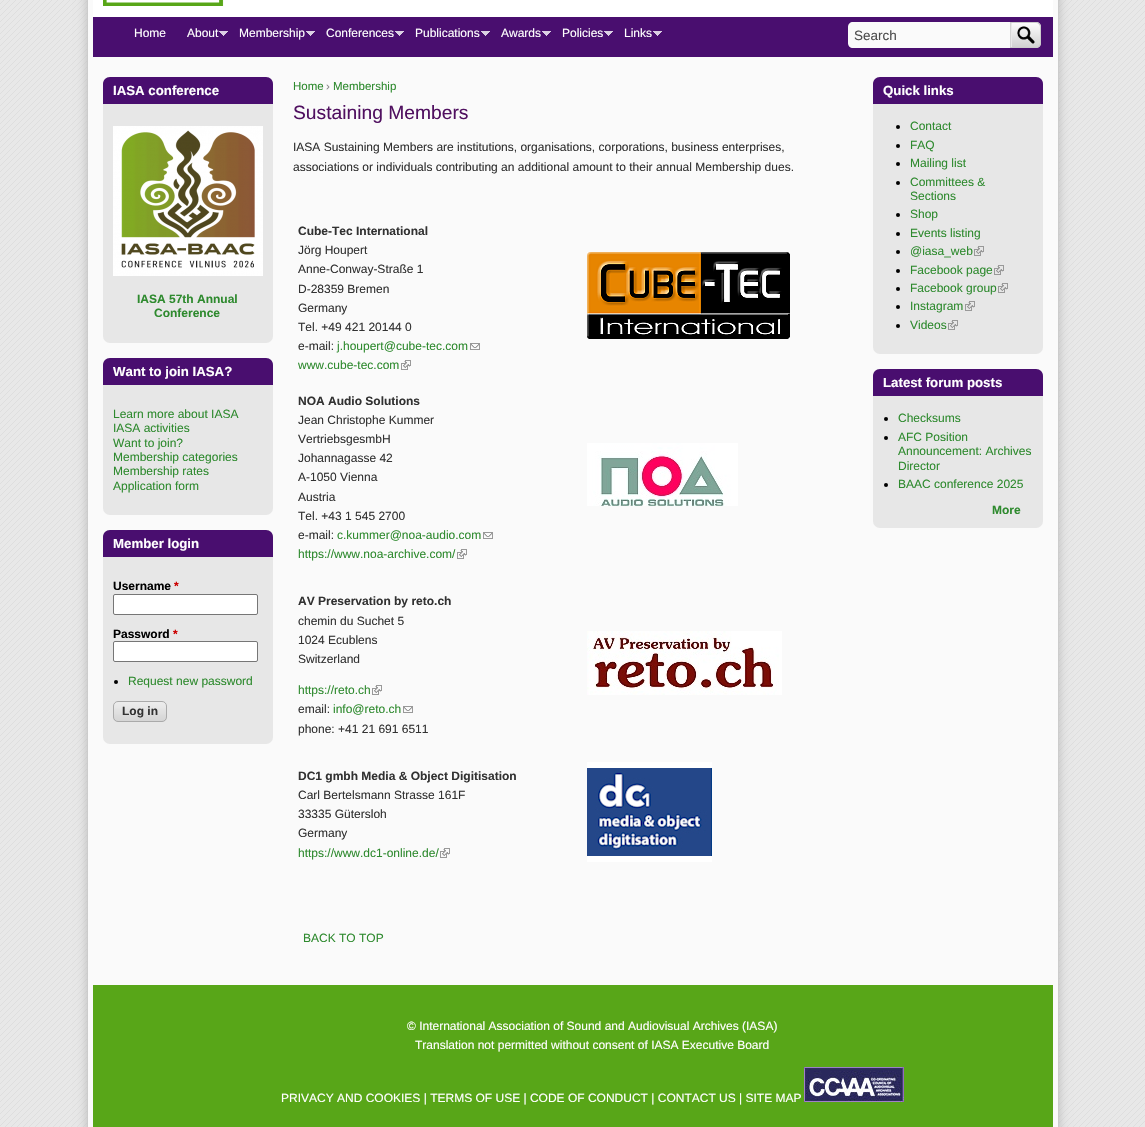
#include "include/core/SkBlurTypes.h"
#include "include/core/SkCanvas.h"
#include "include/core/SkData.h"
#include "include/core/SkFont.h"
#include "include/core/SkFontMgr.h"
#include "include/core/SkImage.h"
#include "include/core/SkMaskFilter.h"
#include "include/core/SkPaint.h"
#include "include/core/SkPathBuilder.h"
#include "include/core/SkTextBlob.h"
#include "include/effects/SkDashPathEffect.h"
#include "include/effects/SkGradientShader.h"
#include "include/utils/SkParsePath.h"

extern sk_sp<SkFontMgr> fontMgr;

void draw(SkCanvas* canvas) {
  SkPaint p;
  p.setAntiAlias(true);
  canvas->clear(SK_ColorWHITE);
  canvas->drawImageRect(SkImages::DeferredFromEncodedData(SkData::MakeFromFileName("images/1.png")), SkRect::MakeLTRB(0, 0, 1145, 1127), SkSamplingOptions());
  p.setColor(SkColorSetRGB(187, 187, 187));
  p.setMaskFilter(SkMaskFilter::MakeBlur(kNormal_SkBlurStyle, 5));
  canvas->drawRect(SkRect::MakeLTRB(87, -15, 1059, 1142), p);
  p.setMaskFilter(nullptr);
  p.setColor(SkColorSetRGB(250, 250, 250));
  canvas->drawRect(SkRect::MakeLTRB(87.5f, -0.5f, 1058.5f, 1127.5f), p);
  p.setStyle(SkPaint::kStroke_Style);
  p.setStrokeWidth(1);
  p.setColor(SkColorSetRGB(204, 204, 204));
  canvas->drawRect(SkRect::MakeLTRB(87.5f, -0.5f, 1058.5f, 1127.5f), p);
  p.setStyle(SkPaint::kFill_Style);
  p.setColor(SK_ColorWHITE);
  canvas->drawRect(SkRect::MakeLTRB(93, 0, 1053, 17), p);
  canvas->drawImageRect(SkImages::DeferredFromEncodedData(SkData::MakeFromFileName("images/2.png")), SkRect::MakeLTRB(103, 0, 224, 6), SkSamplingOptions());
  p.setColor(SkColorSetRGB(73, 14, 111));
  canvas->drawRect(SkRect::MakeLTRB(93, 17, 1053, 57), p);
  canvas->drawImageRect(SkImages::DeferredFromEncodedData(SkData::MakeFromFileName("images/3.png")), SkRect::MakeLTRB(219, 31, 228, 36), SkSamplingOptions());
  canvas->drawImageRect(SkImages::DeferredFromEncodedData(SkData::MakeFromFileName("images/3.png")), SkRect::MakeLTRB(306, 31, 315, 36), SkSamplingOptions());
  canvas->drawImageRect(SkImages::DeferredFromEncodedData(SkData::MakeFromFileName("images/3.png")), SkRect::MakeLTRB(395, 31, 404, 36), SkSamplingOptions());
  canvas->drawImageRect(SkImages::DeferredFromEncodedData(SkData::MakeFromFileName("images/3.png")), SkRect::MakeLTRB(481, 31, 490, 36), SkSamplingOptions());
  canvas->drawImageRect(SkImages::DeferredFromEncodedData(SkData::MakeFromFileName("images/3.png")), SkRect::MakeLTRB(542, 31, 551, 36), SkSamplingOptions());
  canvas->drawImageRect(SkImages::DeferredFromEncodedData(SkData::MakeFromFileName("images/3.png")), SkRect::MakeLTRB(604, 31, 613, 36), SkSamplingOptions());
  canvas->drawImageRect(SkImages::DeferredFromEncodedData(SkData::MakeFromFileName("images/3.png")), SkRect::MakeLTRB(653, 31, 662, 36), SkSamplingOptions());
  p.setColor(SkColorSetRGB(250, 250, 250));
  canvas->drawPath(SkPathBuilder().moveTo(853, 22).lineTo(1010, 22).lineTo(1010, 48).lineTo(853, 48).cubicTo(850, 48, 848, 46, 848, 43).lineTo(848, 27).cubicTo(848, 24, 850, 22, 853, 22).close().detach(), p);
  canvas->drawImageRect(SkImages::DeferredFromEncodedData(SkData::MakeFromFileName("images/4.png")), SkRect::MakeLTRB(1010, 22, 1041, 48), SkSamplingOptions());
  p.setColor(SkColorSetRGB(204, 204, 204));
  canvas->drawPath(SkPathBuilder(SkPathFillType::kEvenOdd).moveTo(1010, 22).lineTo(1036, 22).cubicTo(1039, 22, 1041, 24, 1041, 27).lineTo(1041, 43).cubicTo(1041, 46, 1039, 48, 1036, 48).lineTo(1010, 48).close().moveTo(1010, 23).lineTo(1036, 23).cubicTo(1038, 23, 1040, 25, 1040, 27).lineTo(1040, 43).cubicTo(1040, 45, 1038, 47, 1036, 47).lineTo(1010, 47).close().detach(), p);
  p.setColor(SkColorSetRGB(231, 231, 231));
  canvas->drawRoundRect(SkRect::MakeLTRB(103, 77, 273, 343), 7, 7, p);
  p.setColor(SkColorSetRGB(73, 14, 111));
  canvas->drawPath(SkPathBuilder().moveTo(110, 77).lineTo(266, 77).cubicTo(270, 77, 273, 80, 273, 84).lineTo(273, 104).lineTo(103, 104).lineTo(103, 84).cubicTo(103, 80, 106, 77, 110, 77).close().detach(), p);
  canvas->drawImageRect(SkImages::DeferredFromEncodedData(SkData::MakeFromFileName("images/5.png")), SkRect::MakeLTRB(113, 126, 263, 276), SkSamplingOptions());
  p.setColor(SkColorSetRGB(231, 231, 231));
  canvas->drawRoundRect(SkRect::MakeLTRB(103, 358, 273, 515), 7, 7, p);
  p.setColor(SkColorSetRGB(73, 14, 111));
  canvas->drawPath(SkPathBuilder().moveTo(110, 358).lineTo(266, 358).cubicTo(270, 358, 273, 361, 273, 365).lineTo(273, 385).lineTo(103, 385).lineTo(103, 365).cubicTo(103, 361, 106, 358, 110, 358).close().detach(), p);
  p.setColor(SkColorSetRGB(231, 231, 231));
  canvas->drawRoundRect(SkRect::MakeLTRB(103, 530, 273, 744), 7, 7, p);
  p.setColor(SkColorSetRGB(73, 14, 111));
  canvas->drawPath(SkPathBuilder().moveTo(110, 530).lineTo(266, 530).cubicTo(270, 530, 273, 533, 273, 537).lineTo(273, 557).lineTo(103, 557).lineTo(103, 537).cubicTo(103, 533, 106, 530, 110, 530).close().detach(), p);
  p.setColor(SK_ColorWHITE);
  canvas->drawRoundRect(SkRect::MakeLTRB(113.5f, 594.5f, 257.5f, 614.5f), 1.5f, 1.5f, p);
  p.setStyle(SkPaint::kStroke_Style);
  p.setColor(SkColorSetRGB(118, 118, 118));
  canvas->drawRoundRect(SkRect::MakeLTRB(113.5f, 594.5f, 257.5f, 614.5f), 1.5f, 1.5f, p);
  p.setStyle(SkPaint::kFill_Style);
  p.setColor(SK_ColorWHITE);
  canvas->drawRoundRect(SkRect::MakeLTRB(113.5f, 641.5f, 257.5f, 661.5f), 1.5f, 1.5f, p);
  p.setStyle(SkPaint::kStroke_Style);
  p.setColor(SkColorSetRGB(118, 118, 118));
  canvas->drawRoundRect(SkRect::MakeLTRB(113.5f, 641.5f, 257.5f, 661.5f), 1.5f, 1.5f, p);
  p.setStyle(SkPaint::kFill_Style);
  p.setColor(SK_ColorBLACK);
  canvas->drawCircle(116, 682, 2, p);
  canvas->drawImageRect(SkImages::DeferredFromEncodedData(SkData::MakeFromFileName("images/6.png")), SkRect::MakeLTRB(113, 702, 167, 722), SkSamplingOptions());
  p.setStyle(SkPaint::kStroke_Style);
  p.setColor(SkColorSetRGB(170, 170, 170));
  canvas->drawRoundRect(SkRect::MakeLTRB(113.5f, 701.5f, 166.5f, 721.5f), 4.5f, 4.5f, p);
  canvas->drawImageRect(SkImages::DeferredFromEncodedData(SkData::MakeFromFileName("images/7.png")), SkRect::MakeLTRB(470, 343, 480, 350), SkSamplingOptions());
  canvas->drawImageRect(SkImages::DeferredFromEncodedData(SkData::MakeFromFileName("images/8.png")), SkRect::MakeLTRB(401, 360, 411, 370), SkSamplingOptions());
  canvas->drawImageRect(SkImages::DeferredFromEncodedData(SkData::MakeFromFileName("images/9.png")), SkRect::MakeLTRB(587, 252, 790, 339), SkSamplingOptions());
  canvas->drawImageRect(SkImages::DeferredFromEncodedData(SkData::MakeFromFileName("images/7.png")), SkRect::MakeLTRB(483, 532, 493, 539), SkSamplingOptions());
  canvas->drawImageRect(SkImages::DeferredFromEncodedData(SkData::MakeFromFileName("images/8.png")), SkRect::MakeLTRB(457, 549, 467, 559), SkSamplingOptions());
  canvas->drawImageRect(SkImages::DeferredFromEncodedData(SkData::MakeFromFileName("images/10.png")), SkRect::MakeLTRB(587, 443, 738, 506), SkSamplingOptions());
  canvas->drawImageRect(SkImages::DeferredFromEncodedData(SkData::MakeFromFileName("images/8.png")), SkRect::MakeLTRB(372, 685, 382, 695), SkSamplingOptions());
  canvas->drawImageRect(SkImages::DeferredFromEncodedData(SkData::MakeFromFileName("images/7.png")), SkRect::MakeLTRB(403, 706, 413, 713), SkSamplingOptions());
  canvas->drawImageRect(SkImages::DeferredFromEncodedData(SkData::MakeFromFileName("images/11.png")), SkRect::MakeLTRB(587, 631, 782, 695), SkSamplingOptions());
  canvas->drawImageRect(SkImages::DeferredFromEncodedData(SkData::MakeFromFileName("images/8.png")), SkRect::MakeLTRB(440, 848, 450, 858), SkSamplingOptions());
  canvas->drawImageRect(SkImages::DeferredFromEncodedData(SkData::MakeFromFileName("images/12.png")), SkRect::MakeLTRB(587, 762, 712, 862), SkSamplingOptions());
  p.setStyle(SkPaint::kFill_Style);
  p.setColor(SkColorSetRGB(231, 231, 231));
  canvas->drawRoundRect(SkRect::MakeLTRB(873, 77, 1043, 354), 7, 7, p);
  p.setColor(SkColorSetRGB(73, 14, 111));
  canvas->drawPath(SkPathBuilder().moveTo(880, 77).lineTo(1036, 77).cubicTo(1040, 77, 1043, 80, 1043, 84).lineTo(1043, 104).lineTo(873, 104).lineTo(873, 84).cubicTo(873, 80, 876, 77, 880, 77).close().detach(), p);
  p.setColor(SK_ColorBLACK);
  canvas->drawCircle(898, 127, 2, p);
  canvas->drawCircle(898, 146, 2, p);
  canvas->drawCircle(898, 164, 2, p);
  canvas->drawCircle(898, 183, 2, p);
  canvas->drawCircle(898, 215, 2, p);
  canvas->drawCircle(898, 234, 2, p);
  canvas->drawCircle(898, 252, 2, p);
  canvas->drawImageRect(SkImages::DeferredFromEncodedData(SkData::MakeFromFileName("images/13.png")), SkRect::MakeLTRB(974, 246, 984, 256), SkSamplingOptions());
  canvas->drawCircle(898, 271, 2, p);
  canvas->drawImageRect(SkImages::DeferredFromEncodedData(SkData::MakeFromFileName("images/13.png")), SkRect::MakeLTRB(994, 265, 1004, 275), SkSamplingOptions());
  canvas->drawCircle(898, 289, 2, p);
  canvas->drawImageRect(SkImages::DeferredFromEncodedData(SkData::MakeFromFileName("images/13.png")), SkRect::MakeLTRB(998, 283, 1008, 293), SkSamplingOptions());
  canvas->drawCircle(898, 307, 2, p);
  canvas->drawImageRect(SkImages::DeferredFromEncodedData(SkData::MakeFromFileName("images/13.png")), SkRect::MakeLTRB(965, 301, 975, 311), SkSamplingOptions());
  canvas->drawCircle(898, 326, 2, p);
  canvas->drawImageRect(SkImages::DeferredFromEncodedData(SkData::MakeFromFileName("images/13.png")), SkRect::MakeLTRB(948, 320, 958, 330), SkSamplingOptions());
  p.setColor(SkColorSetRGB(231, 231, 231));
  canvas->drawRoundRect(SkRect::MakeLTRB(873, 369, 1043, 528), 7, 7, p);
  p.setColor(SkColorSetRGB(73, 14, 111));
  canvas->drawPath(SkPathBuilder().moveTo(880, 369).lineTo(1036, 369).cubicTo(1040, 369, 1043, 372, 1043, 376).lineTo(1043, 396).lineTo(873, 396).lineTo(873, 376).cubicTo(873, 372, 876, 369, 880, 369).close().detach(), p);
  p.setColor(SK_ColorBLACK);
  canvas->drawCircle(886, 419, 2, p);
  canvas->drawCircle(886, 438, 2, p);
  canvas->drawCircle(886, 485, 2, p);
  p.setColor(SkColorSetRGB(88, 166, 24));
  canvas->drawRect(SkRect::MakeLTRB(93, 985, 1053, 1127), p);
  canvas->drawImageRect(SkImages::DeferredFromEncodedData(SkData::MakeFromFileName("images/14.png")), SkRect::MakeLTRB(804, 1067, 904, 1102), SkSamplingOptions());
  SkFont font1(fontMgr->matchFamilyStyle("Liberation Sans", SkFontStyle::Normal()), 12);
  font1.setSubpixel(true);
  p.setColor(SK_ColorWHITE);
  canvas->drawString("Home", 134, 37, font1, p);
  canvas->drawString("About", 187, 37, font1, p);
  canvas->drawString("Membership", 239, 37, font1, p);
  canvas->drawString("Conferences", 326, 37, font1, p);
  canvas->drawString("Publications", 415, 37, font1, p);
  canvas->drawString("Awards", 501, 37, font1, p);
  canvas->drawString("Policies", 562, 37, font1, p);
  canvas->drawString("Links", 624, 37, font1, p);
  SkFont font2(fontMgr->matchFamilyStyle("Liberation Sans", SkFontStyle::Normal()), 13.5f);
  font2.setSubpixel(true);
  p.setColor(SkColorSetRGB(78, 78, 78));
  canvas->drawString("Search", 854, 40, font2, p);
  SkFont font3(fontMgr->matchFamilyStyle("Liberation Sans", SkFontStyle::Bold()), 13.25f);
  font3.setSubpixel(true);
  p.setColor(SK_ColorWHITE);
  canvas->drawString("IASA conference", 113, 95, font3, p);
  SkFont font4(fontMgr->matchFamilyStyle("Liberation Sans", SkFontStyle::Bold()), 12);
  font4.setSubpixel(true);
  p.setColor(SkColorSetRGB(46, 138, 46));
  canvas->drawString("IASA 57th Annual", 137, 303, font4, p);
  canvas->drawString("Conference", 154, 317, font4, p);
  p.setColor(SK_ColorWHITE);
  canvas->drawString("Want to join IASA?", 113, 376, font3, p);
  p.setColor(SkColorSetRGB(46, 138, 46));
  canvas->drawString("Learn more about IASA", 113, 418, font1, p);
  canvas->drawString("IASA activities", 113, 432, font1, p);
  canvas->drawString("Want to join?", 113, 447, font1, p);
  canvas->drawString("Membership categories", 113, 461, font1, p);
  canvas->drawString("Membership rates", 113, 475, font1, p);
  canvas->drawString("Application form", 113, 490, font1, p);
  p.setColor(SK_ColorWHITE);
  canvas->drawString("Member login", 113, 548, font3, p);
  p.setColor(SK_ColorBLACK);
  canvas->drawString("Username", 113, 590, font4, p);
  p.setColor(SkColorSetRGB(204, 0, 0));
  canvas->drawString("*", 174, 590, font4, p);
  p.setColor(SK_ColorBLACK);
  canvas->drawString("Password", 113, 638, font4, p);
  p.setColor(SkColorSetRGB(204, 0, 0));
  canvas->drawString("*", 173, 638, font4, p);
  p.setColor(SkColorSetRGB(46, 138, 46));
  canvas->drawString("Request new password", 128, 685, font1, p);
  p.setColor(SkColorSetRGB(50, 50, 50));
  canvas->drawString("Log in", 122, 715, font4, p);
  SkFont font5(fontMgr->matchFamilyStyle("Liberation Sans", SkFontStyle::Normal()), 11.5f);
  font5.setSubpixel(true);
  p.setColor(SkColorSetRGB(46, 138, 46));
  canvas->drawString("Home", 293, 90, font5, p);
  p.setColor(SkColorSetRGB(136, 136, 136));
  canvas->drawString("›", 326, 90, font5, p);
  p.setColor(SkColorSetRGB(46, 138, 46));
  canvas->drawString("Membership", 333, 90, font5, p);
  SkFont font6(fontMgr->matchFamilyStyle("Liberation Sans", SkFontStyle::Normal()), 19.25f);
  font6.setSubpixel(true);
  p.setColor(SkColorSetRGB(80, 16, 96));
  canvas->drawString("Sustaining Members", 293, 119, font6, p);
  p.setColor(SkColorSetRGB(50, 50, 50));
  canvas->drawString("IASA Sustaining Members are institutions, organisations, corporations, business enterprises,", 293, 151, font1, p);
  canvas->drawString("associations or individuals contributing an additional amount to their annual Membership dues.", 293, 171, font1, p);
  canvas->drawString("Cube-Tec International", 298, 235, font4, p);
  canvas->drawString("Jörg Houpert", 298, 254, font1, p);
  canvas->drawString("Anne-Conway-Straße 1", 298, 273, font1, p);
  canvas->drawString("D-28359 Bremen", 298, 293, font1, p);
  canvas->drawString("Germany", 298, 312, font1, p);
  canvas->drawString("Tel. +49 421 20144 0", 298, 331, font1, p);
  canvas->drawString("e-mail:", 298, 350, font1, p);
  p.setColor(SkColorSetRGB(46, 138, 46));
  canvas->drawString("j.houpert@cube-tec.com", 337, 350, font1, p);
  canvas->drawString("www.cube-tec.com", 298, 369, font1, p);
  p.setColor(SkColorSetRGB(50, 50, 50));
  canvas->drawString("NOA Audio Solutions", 298, 405, font4, p);
  canvas->drawString("Jean Christophe Kummer", 298, 424, font1, p);
  canvas->drawString("VertriebsgesmbH", 298, 443, font1, p);
  canvas->drawString("Johannagasse 42", 298, 462, font1, p);
  canvas->drawString("A-1050 Vienna", 298, 481, font1, p);
  canvas->drawString("Austria", 298, 501, font1, p);
  canvas->drawString("Tel. +43 1 545 2700", 298, 520, font1, p);
  canvas->drawString("e-mail:", 298, 539, font1, p);
  p.setColor(SkColorSetRGB(46, 138, 46));
  canvas->drawString("c.kummer@noa-audio.com", 337, 539, font1, p);
  canvas->drawString("https://www.noa-archive.com/", 298, 558, font1, p);
  p.setColor(SkColorSetRGB(50, 50, 50));
  canvas->drawString("AV Preservation by reto.ch", 298, 605, font4, p);
  canvas->drawString("chemin du Suchet 5", 298, 625, font1, p);
  canvas->drawString("1024 Ecublens", 298, 644, font1, p);
  canvas->drawString("Switzerland", 298, 663, font1, p);
  p.setColor(SkColorSetRGB(46, 138, 46));
  canvas->drawString("https://reto.ch", 298, 694, font1, p);
  p.setColor(SkColorSetRGB(50, 50, 50));
  canvas->drawString("email:", 298, 713, font1, p);
  p.setColor(SkColorSetRGB(46, 138, 46));
  canvas->drawString("info@reto.ch", 333, 713, font1, p);
  p.setColor(SkColorSetRGB(50, 50, 50));
  canvas->drawString("phone: +41 21 691 6511", 298, 733, font1, p);
  canvas->drawString("DC1 gmbh Media & Object Digitisation", 298, 780, font4, p);
  canvas->drawString("Carl Bertelsmann Strasse 161F", 298, 799, font1, p);
  canvas->drawString("33335 Gütersloh", 298, 818, font1, p);
  canvas->drawString("Germany", 298, 837, font1, p);
  p.setColor(SkColorSetRGB(46, 138, 46));
  canvas->drawString("https://www.dc1-online.de/", 298, 857, font1, p);
  canvas->drawString("BACK TO TOP", 303, 942, font1, p);
  p.setColor(SK_ColorWHITE);
  canvas->drawString("Quick links", 883, 95, font3, p);
  p.setColor(SkColorSetRGB(46, 138, 46));
  canvas->drawString("Contact", 910, 130, font1, p);
  canvas->drawString("FAQ", 910, 149, font1, p);
  canvas->drawString("Mailing list", 910, 167, font1, p);
  canvas->drawString("Committees &", 910, 186, font1, p);
  canvas->drawString("Sections", 910, 200, font1, p);
  canvas->drawString("Shop", 910, 218, font1, p);
  canvas->drawString("Events listing", 910, 237, font1, p);
  canvas->drawString("@iasa_web", 910, 255, font1, p);
  canvas->drawString("Facebook page", 910, 274, font1, p);
  canvas->drawString("Facebook group", 910, 292, font1, p);
  canvas->drawString("Instagram", 910, 310, font1, p);
  canvas->drawString("Videos", 910, 329, font1, p);
  p.setColor(SK_ColorWHITE);
  canvas->drawString("Latest forum posts", 883, 387, font3, p);
  p.setColor(SkColorSetRGB(46, 138, 46));
  canvas->drawString("Checksums", 898, 422, font1, p);
  canvas->drawString("AFC Position", 898, 441, font1, p);
  canvas->drawString("Announcement: Archives", 898, 455, font1, p);
  canvas->drawString("Director", 898, 470, font1, p);
  canvas->drawString("BAAC conference 2025", 898, 488, font1, p);
  canvas->drawString("More", 992, 514, font4, p);
  p.setColor(SK_ColorWHITE);
  canvas->drawString("© International Association of Sound and Audiovisual Archives (IASA)", 407, 1030, font1, p);
  canvas->drawString("Translation not permitted without consent of IASA Executive Board", 415, 1049, font1, p);
  canvas->drawString("PRIVACY AND COOKIES | TERMS OF USE | CODE OF CONDUCT | CONTACT US | SITE MAP", 281, 1102, font1, p);
}
